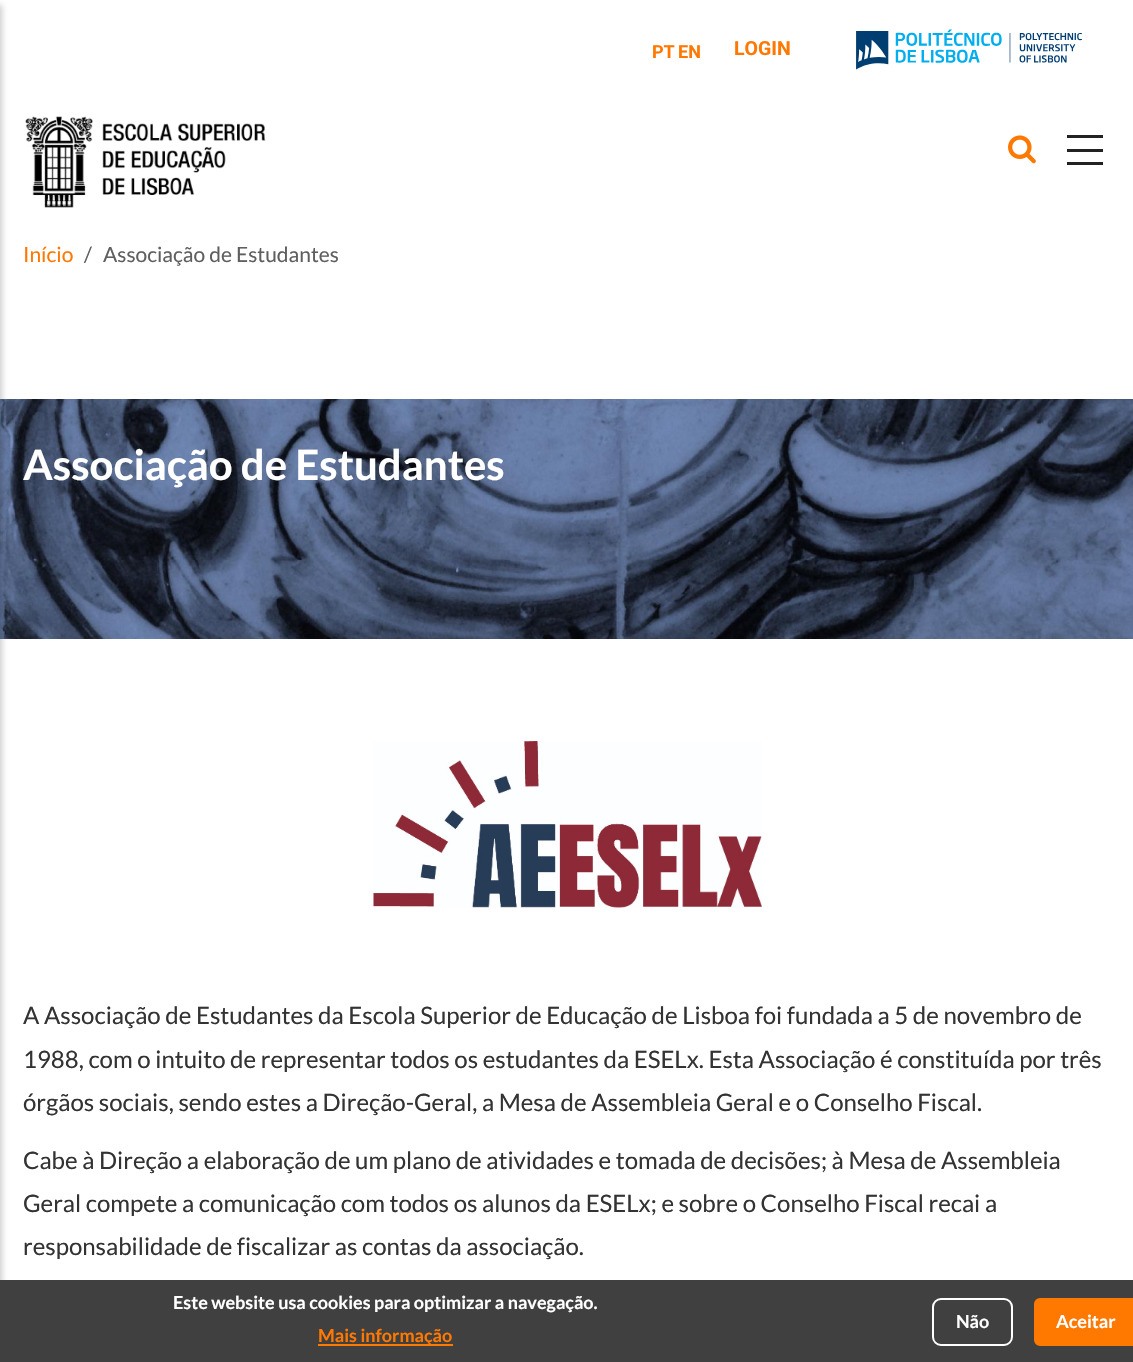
#include "include/core/SkBlurTypes.h"
#include "include/core/SkCanvas.h"
#include "include/core/SkData.h"
#include "include/core/SkFont.h"
#include "include/core/SkFontMgr.h"
#include "include/core/SkImage.h"
#include "include/core/SkMaskFilter.h"
#include "include/core/SkPaint.h"
#include "include/core/SkPathBuilder.h"
#include "include/core/SkTextBlob.h"
#include "include/effects/SkDashPathEffect.h"
#include "include/effects/SkGradientShader.h"
#include "include/utils/SkParsePath.h"

extern sk_sp<SkFontMgr> fontMgr;

void draw(SkCanvas* canvas) {
  SkPaint p;
  p.setAntiAlias(true);
  canvas->clear(SK_ColorWHITE);
  canvas->drawImageRect(SkImages::DeferredFromEncodedData(SkData::MakeFromFileName("images/4.png")), SkRect::MakeLTRB(0, 399, 1133, 639), SkSamplingOptions());
  p.setColor(SkColorSetARGB(51, 0, 0, 0));
  p.setMaskFilter(SkMaskFilter::MakeBlur(kNormal_SkBlurStyle, 3));
  canvas->drawRect(SkRect::MakeLTRB(-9, 5, 2, 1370), p);
  p.setMaskFilter(nullptr);
  canvas->drawImageRect(SkImages::DeferredFromEncodedData(SkData::MakeFromFileName("images/1.png")), SkRect::MakeLTRB(1008, 135, 1036, 164), SkSamplingOptions());
  p.setColor(SkColorSetRGB(34, 34, 34));
  canvas->drawRect(SkRect::MakeLTRB(1067, 135, 1103, 138), p);
  canvas->drawRect(SkRect::MakeLTRB(1067, 149, 1103, 152), p);
  canvas->drawRect(SkRect::MakeLTRB(1067, 162, 1103, 165), p);
  canvas->drawImageRect(SkImages::DeferredFromEncodedData(SkData::MakeFromFileName("images/2.png")), SkRect::MakeLTRB(25, 116, 266, 208), SkSamplingOptions());
  canvas->drawImageRect(SkImages::DeferredFromEncodedData(SkData::MakeFromFileName("images/3.png")), SkRect::MakeLTRB(856, 29, 1082, 70), SkSamplingOptions());
  canvas->drawImageRect(SkImages::DeferredFromEncodedData(SkData::MakeFromFileName("images/5.png")), SkRect::MakeLTRB(373, 741, 762, 908), SkSamplingOptions());
  p.setColor(SkColorSetRGB(64, 64, 64));
  canvas->drawRect(SkRect::MakeLTRB(0, 1280, 1133, 1362), p);
  p.setColor(SkColorSetRGB(255, 120, 0));
  canvas->drawRect(SkRect::MakeLTRB(318, 1344, 453, 1346), p);
  p.setStyle(SkPaint::kStroke_Style);
  p.setStrokeWidth(2);
  p.setColor(SK_ColorWHITE);
  canvas->drawRoundRect(SkRect::MakeLTRB(933, 1299, 1012, 1345), 8, 8, p);
  p.setStyle(SkPaint::kFill_Style);
  p.setColor(SkColorSetRGB(255, 120, 0));
  canvas->drawRoundRect(SkRect::MakeLTRB(1035, 1299, 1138, 1345), 5, 5, p);
  p.setStyle(SkPaint::kStroke_Style);
  canvas->drawRoundRect(SkRect::MakeLTRB(1035, 1299, 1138, 1345), 5, 5, p);
  SkFont font1(fontMgr->matchFamilyStyle("Roboto", SkFontStyle::Bold()), 18);
  font1.setSubpixel(true);
  p.setStyle(SkPaint::kFill_Style);
  canvas->drawString("PT", 652, 58, font1, p);
  canvas->drawString("EN", 678, 58, font1, p);
  SkFont font2(fontMgr->matchFamilyStyle("Roboto", SkFontStyle::Bold()), 19.5f);
  font2.setSubpixel(true);
  canvas->drawString("LOGIN", 734, 55, font2, p);
  SkFont font3(fontMgr->matchFamilyStyle("Lato", SkFontStyle::Normal()), 21);
  font3.setSubpixel(true);
  canvas->drawString("Início", 23, 262, font3, p);
  p.setColor(SkColorSetRGB(95, 95, 95));
  canvas->drawString("/", 84, 262, font3, p);
  canvas->drawString("Associação de Estudantes", 103, 262, font3, p);
  SkFont font4(fontMgr->matchFamilyStyle("Lato", SkFontStyle::Bold()), 42);
  font4.setSubpixel(true);
  p.setColor(SK_ColorWHITE);
  canvas->drawString("Associação de Estudantes", 23, 480, font4, p);
  SkFont font5(fontMgr->matchFamilyStyle("Lato", SkFontStyle::Normal()), 24);
  font5.setSubpixel(true);
  p.setColor(SkColorSetRGB(51, 51, 51));
  canvas->drawString("A Associação de Estudantes da Escola Superior de Educação de Lisboa foi fundada a 5 de novembro de", 23, 1024, font5, p);
  canvas->drawString("1988, com o intuito de representar todos os estudantes da ESELx. Esta Associação é constituída por três", 23, 1068, font5, p);
  canvas->drawString("órgãos sociais, sendo estes a Direção-Geral, a Mesa de Assembleia Geral e o Conselho Fiscal.", 23, 1111, font5, p);
  canvas->drawString("Cabe à Direção a elaboração de um plano de atividades e tomada de decisões; à Mesa de Assembleia", 23, 1169, font5, p);
  canvas->drawString("Geral compete a comunicação com todos os alunos da ESELx; e sobre o Conselho Fiscal recai a", 23, 1212, font5, p);
  canvas->drawString("responsabilidade de fiscalizar as contas da associação.", 23, 1255, font5, p);
  SkFont font6(fontMgr->matchFamilyStyle("Lato", SkFontStyle::Bold()), 18);
  font6.setSubpixel(true);
  p.setColor(SK_ColorWHITE);
  canvas->drawString("Este website usa cookies para optimizar a navegação.", 173, 1309, font6, p);
  p.setColor(SkColorSetRGB(255, 120, 0));
  canvas->drawString("Mais informação", 318, 1342, font6, p);
  p.setColor(SK_ColorWHITE);
  canvas->drawString("Não", 956, 1328, font6, p);
  canvas->drawString("Aceitar", 1056, 1328, font6, p);
}
